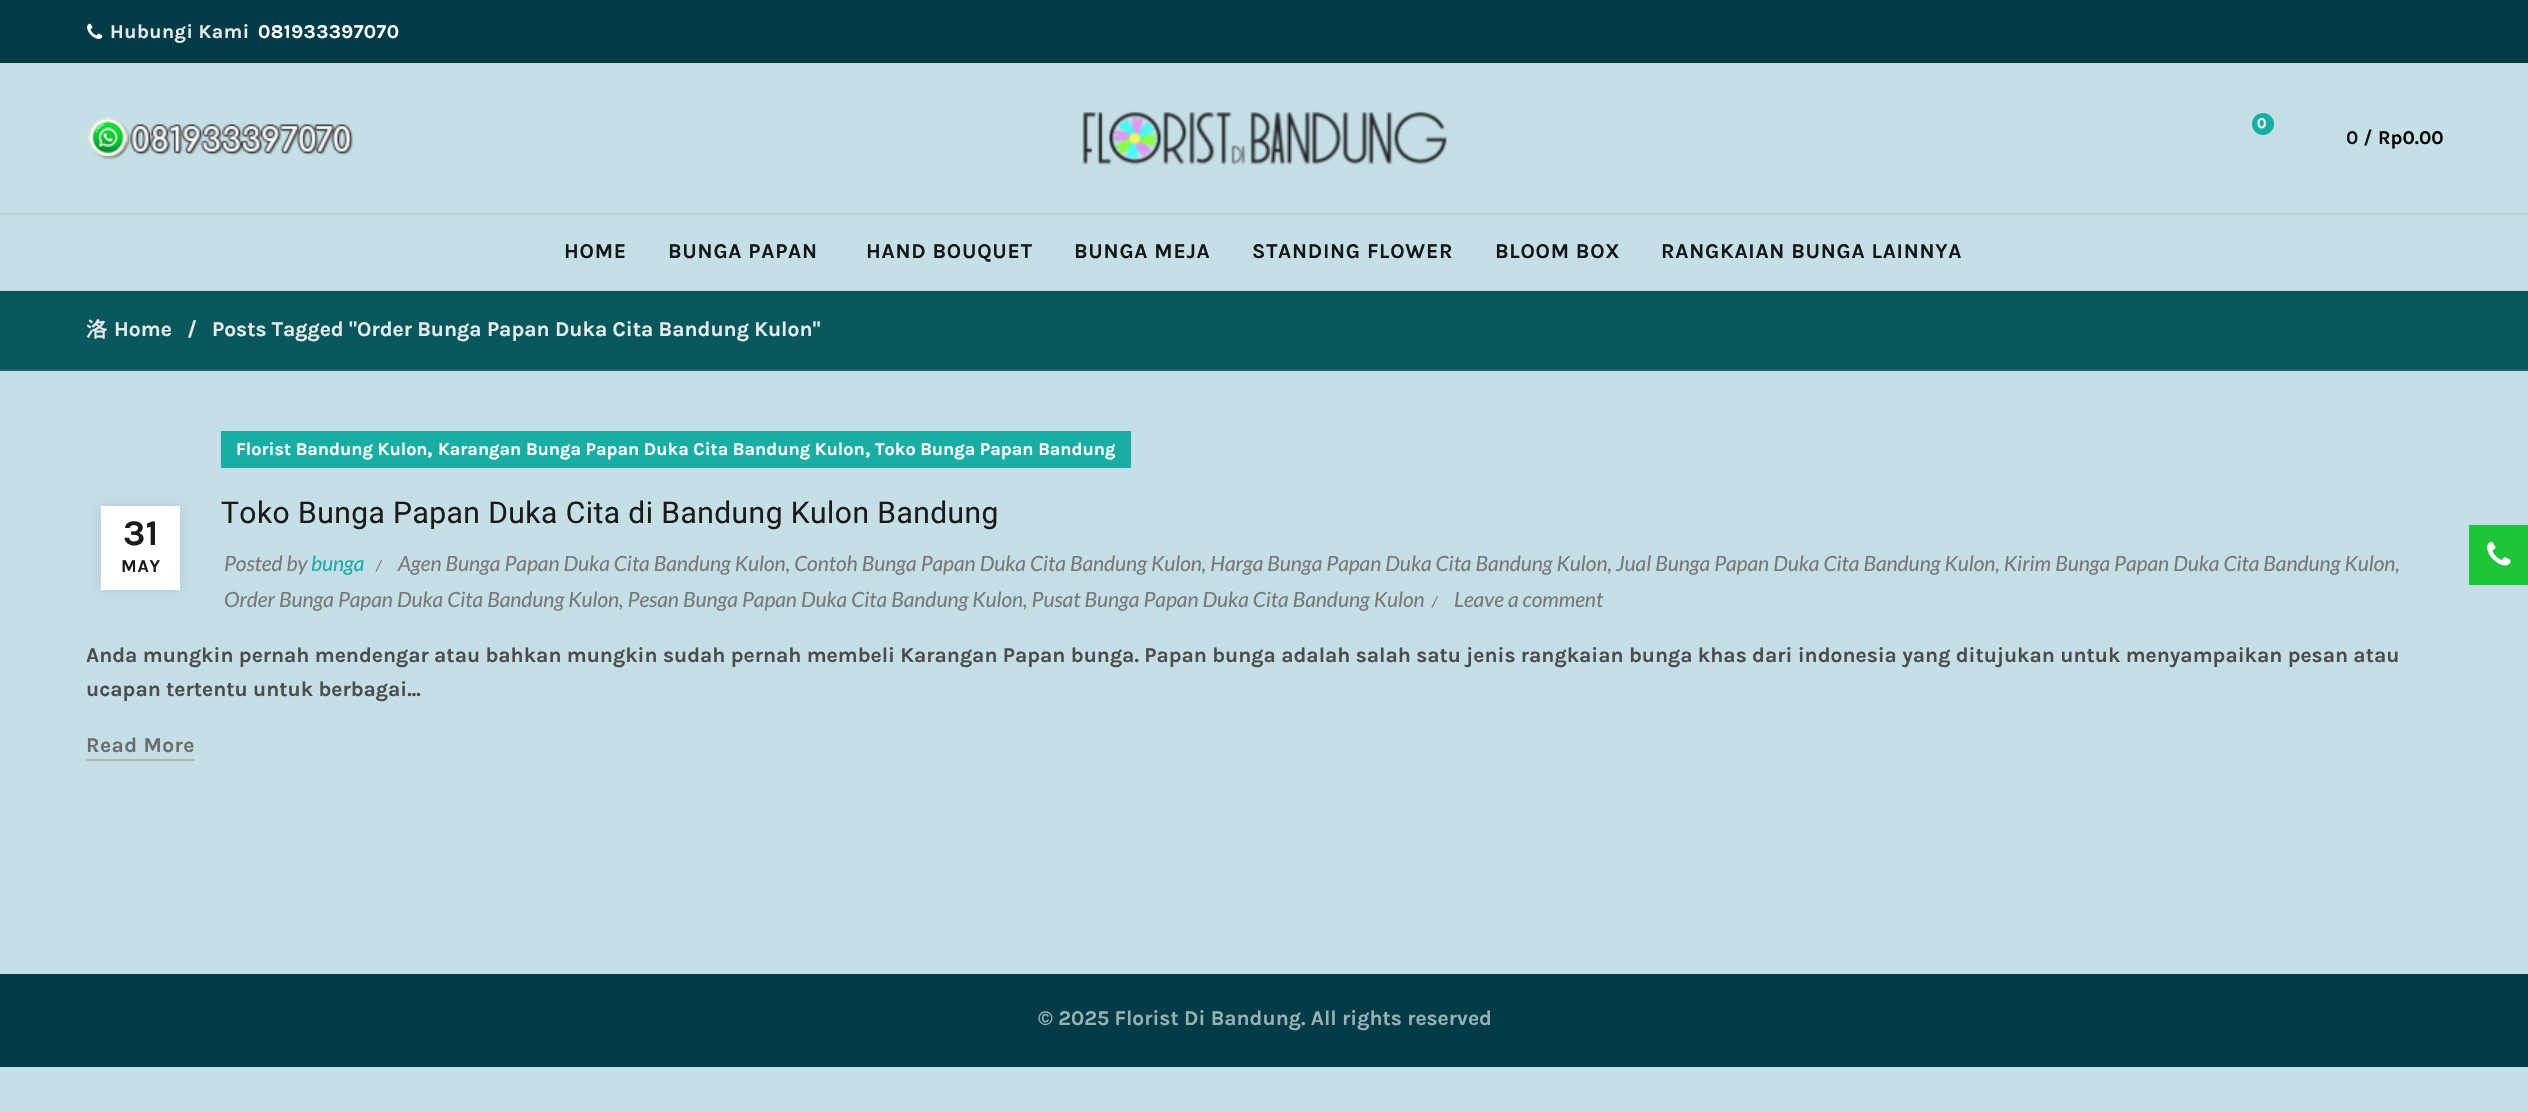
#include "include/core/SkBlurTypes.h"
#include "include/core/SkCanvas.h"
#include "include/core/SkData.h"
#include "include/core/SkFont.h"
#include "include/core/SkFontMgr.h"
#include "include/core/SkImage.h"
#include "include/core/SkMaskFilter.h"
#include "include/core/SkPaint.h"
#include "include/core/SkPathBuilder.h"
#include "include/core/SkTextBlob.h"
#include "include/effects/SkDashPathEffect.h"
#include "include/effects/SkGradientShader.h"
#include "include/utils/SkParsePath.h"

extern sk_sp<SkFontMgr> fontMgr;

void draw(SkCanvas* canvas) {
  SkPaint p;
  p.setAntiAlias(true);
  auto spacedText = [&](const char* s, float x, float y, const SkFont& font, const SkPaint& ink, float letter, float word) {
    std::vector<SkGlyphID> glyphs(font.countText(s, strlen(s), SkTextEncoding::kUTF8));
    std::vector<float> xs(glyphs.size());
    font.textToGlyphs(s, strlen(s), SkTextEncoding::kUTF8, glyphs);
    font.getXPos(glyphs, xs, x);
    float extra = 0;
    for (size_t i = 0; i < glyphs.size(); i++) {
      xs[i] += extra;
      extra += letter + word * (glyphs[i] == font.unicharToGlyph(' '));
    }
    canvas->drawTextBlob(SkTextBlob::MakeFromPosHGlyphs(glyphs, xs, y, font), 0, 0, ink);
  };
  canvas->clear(SkColorSetRGB(196, 223, 230));
  p.setColor(SkColorSetRGB(0, 59, 70));
  canvas->drawRect(SkRect::MakeLTRB(0, 0, 2528, 63), p);
  canvas->drawImageRect(SkImages::DeferredFromEncodedData(SkData::MakeFromFileName("images/1.png")), SkRect::MakeLTRB(87, 23, 103, 39), SkSamplingOptions());
  canvas->drawImageRect(SkImages::DeferredFromEncodedData(SkData::MakeFromFileName("images/2.png")), SkRect::MakeLTRB(87, 117, 353, 160), SkSamplingOptions());
  canvas->drawImageRect(SkImages::DeferredFromEncodedData(SkData::MakeFromFileName("images/3.png")), SkRect::MakeLTRB(1082, 111, 1447, 165), SkSamplingOptions());
  p.setColor(SkColorSetRGB(26, 173, 163));
  canvas->drawCircle(2263, 124, 11, p);
  p.setColor(SkColorSetRGB(190, 212, 218));
  canvas->drawRect(SkRect::MakeLTRB(0, 213, 2528, 215), p);
  canvas->drawRect(SkRect::MakeLTRB(0, 290, 2528, 291), p);
  p.setColor(SkColorSetRGB(7, 87, 91));
  canvas->drawRect(SkRect::MakeLTRB(0, 291, 2528, 369), p);
  p.setColor(SkColorSetRGB(31, 99, 103));
  canvas->drawRect(SkRect::MakeLTRB(0, 369, 2528, 371), p);
  p.setColor(SkColorSetARGB(26, 0, 0, 0));
  p.setMaskFilter(SkMaskFilter::MakeBlur(kNormal_SkBlurStyle, 7));
  canvas->drawRect(SkRect::MakeLTRB(101, 506, 180, 590), p);
  p.setMaskFilter(nullptr);
  p.setColor(SK_ColorWHITE);
  canvas->drawRect(SkRect::MakeLTRB(101, 506, 180, 590), p);
  p.setColor(SkColorSetRGB(26, 173, 163));
  canvas->drawRect(SkRect::MakeLTRB(221, 431, 1131, 468), p);
  p.setColor(SkColorSetRGB(181, 181, 181));
  canvas->drawRect(SkRect::MakeLTRB(86, 759, 195, 761), p);
  p.setColor(SkColorSetRGB(0, 59, 70));
  canvas->drawRect(SkRect::MakeLTRB(0, 974, 2528, 1067), p);
  p.setColor(SkColorSetRGB(31, 196, 56));
  canvas->drawRect(SkRect::MakeLTRB(2469, 525, 2528, 585), p);
  canvas->drawImageRect(SkImages::DeferredFromEncodedData(SkData::MakeFromFileName("images/4.png")), SkRect::MakeLTRB(2487, 542, 2511, 566), SkSamplingOptions());
  SkFont font1(fontMgr->matchFamilyStyle("Karla", SkFontStyle::Bold()), 19.5f);
  font1.setSubpixel(true);
  p.setColor(SkColorSetRGB(230, 235, 237));
  spacedText("Hubungi Kami", 110, 38, font1, p, 0.45f, 0);
  p.setColor(SK_ColorWHITE);
  spacedText("081933397070", 258, 38, font1, p, 0.45f, 0);
  SkFont font2(fontMgr->matchFamilyStyle("Karla", SkFontStyle::Bold()), 15);
  font2.setSubpixel(true);
  canvas->drawString("0", 2257, 128, font2, p);
  p.setColor(SkColorSetRGB(20, 22, 23));
  canvas->drawString("0 /", 2346, 144, font1, p);
  p.setColor(SK_ColorBLACK);
  canvas->drawString("Rp0.00", 2378, 144, font1, p);
  SkFont font3(fontMgr->matchFamilyStyle("Karla", SkFontStyle::Bold()), 21);
  font3.setSubpixel(true);
  p.setColor(SkColorSetRGB(20, 22, 23));
  spacedText("HOME", 564, 258, font3, p, 0.75f, 0);
  spacedText("BUNGA PAPAN", 668, 258, font3, p, 0.75f, 0);
  spacedText("HAND BOUQUET", 866, 258, font3, p, 0.75f, 0);
  spacedText("BUNGA MEJA", 1074, 258, font3, p, 0.75f, 0);
  spacedText("STANDING FLOWER", 1252, 258, font3, p, 0.75f, 0);
  spacedText("BLOOM BOX", 1495, 258, font3, p, 0.75f, 0);
  spacedText("RANGKAIAN BUNGA LAINNYA", 1661, 258, font3, p, 0.75f, 0);
  SkFont font4(fontMgr->matchFamilyStyle("WenQuanYi Zen Hei", SkFontStyle::Bold()), 21);
  font4.setSubpixel(true);
  p.setColor(SkColorSetRGB(230, 235, 237));
  canvas->drawString("洛", 86, 336, font4, p);
  canvas->drawString("Home", 114, 336, font3, p);
  canvas->drawString("/", 187, 336, font3, p);
  canvas->drawString("Posts Tagged \"Order Bunga Papan Duka Cita Bandung Kulon\"", 212, 336, font3, p);
  SkFont font5(fontMgr->matchFamilyStyle("Karla", SkFontStyle::Bold()), 36);
  font5.setSubpixel(true);
  p.setColor(SkColorSetRGB(27, 25, 25));
  canvas->drawString("31", 123, 545, font5, p);
  SkFont font6(fontMgr->matchFamilyStyle("Karla", SkFontStyle::Bold()), 18);
  font6.setSubpixel(true);
  spacedText("MAY", 121, 572, font6, p, 0.75f, 0);
  p.setColor(SK_ColorWHITE);
  canvas->drawString("Florist Bandung Kulon", 236, 455, font6, p);
  canvas->drawString(",", 427, 455, font3, p);
  canvas->drawString("Karangan Bunga Papan Duka Cita Bandung Kulon", 438, 455, font6, p);
  canvas->drawString(",", 865, 455, font3, p);
  canvas->drawString("Toko Bunga Papan Bandung", 875, 455, font6, p);
  SkFont font7(fontMgr->matchFamilyStyle("Roboto", SkFontStyle::Normal()), 30);
  font7.setSubpixel(true);
  p.setColor(SkColorSetRGB(27, 25, 25));
  spacedText("Toko Bunga Papan Duka Cita di Bandung Kulon Bandung", 221, 523, font7, p, 0.45f, 0);
  SkFont font8(fontMgr->matchFamilyStyle("Lato", SkFontStyle::Italic()), 21);
  font8.setSubpixel(true);
  p.setColor(SkColorSetRGB(120, 120, 120));
  canvas->drawString("Posted by", 224, 571, font8, p);
  p.setColor(SkColorSetRGB(26, 173, 163));
  canvas->drawString("bunga", 311, 571, font8, p);
  SkFont font9(fontMgr->matchFamilyStyle("Lato", SkFontStyle::Italic()), 15);
  font9.setSubpixel(true);
  p.setColor(SkColorSetRGB(120, 120, 120));
  canvas->drawString("/", 376, 571, font9, p);
  canvas->drawString("Agen Bunga Papan Duka Cita Bandung Kulon, Contoh Bunga Papan Duka Cita Bandung Kulon, Harga Bunga Papan Duka Cita Bandung Kulon, Jual Bunga Papan Duka Cita Bandung Kulon, Kirim Bunga Papan Duka Cita Bandung Kulon,", 398, 571, font8, p);
  canvas->drawString("Order Bunga Papan Duka Cita Bandung Kulon, Pesan Bunga Papan Duka Cita Bandung Kulon, Pusat Bunga Papan Duka Cita Bandung Kulon", 224, 607, font8, p);
  canvas->drawString("/", 1432, 607, font9, p);
  canvas->drawString("Leave a comment", 1454, 607, font8, p);
  p.setColor(SkColorSetRGB(76, 76, 76));
  canvas->drawString("Anda mungkin pernah mendengar atau bahkan mungkin sudah pernah membeli Karangan Papan bunga. Papan bunga adalah salah satu jenis rangkaian bunga khas dari indonesia yang ditujukan untuk menyampaikan pesan atau", 86, 662, font3, p);
  canvas->drawString("ucapan tertentu untuk berbagai...", 86, 696, font3, p);
  p.setColor(SkColorSetRGB(109, 109, 109));
  spacedText("Read More", 86, 752, font3, p, 0.45f, 0);
  p.setColor(SkColorSetRGB(153, 177, 181));
  canvas->drawString("© 2025 Florist Di Bandung. All rights reserved", 1038, 1025, font3, p);
}
